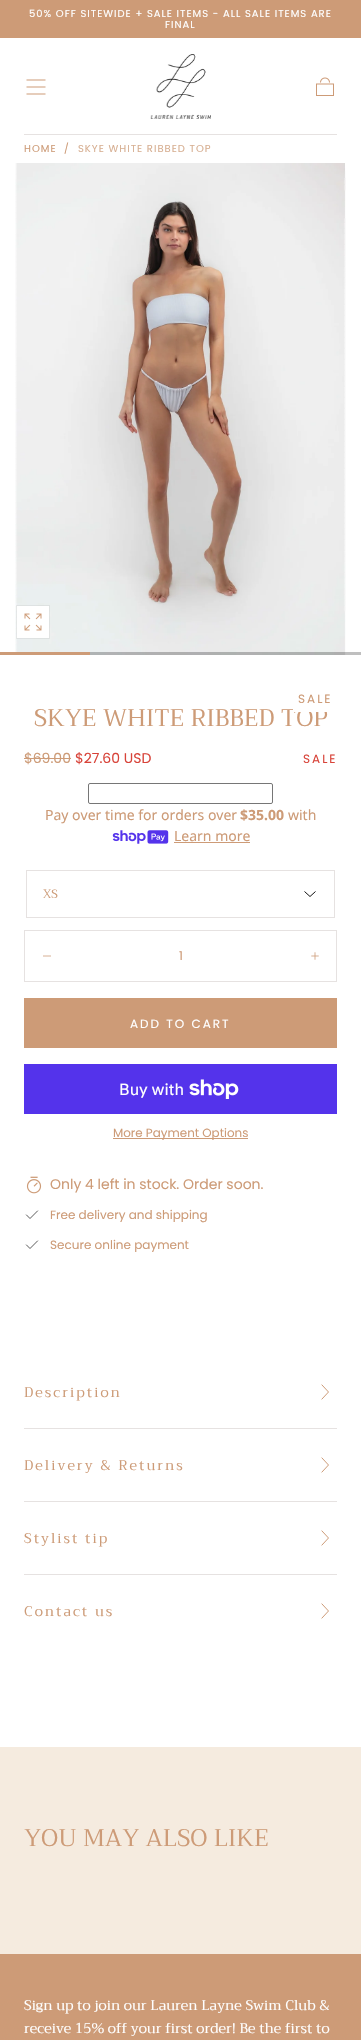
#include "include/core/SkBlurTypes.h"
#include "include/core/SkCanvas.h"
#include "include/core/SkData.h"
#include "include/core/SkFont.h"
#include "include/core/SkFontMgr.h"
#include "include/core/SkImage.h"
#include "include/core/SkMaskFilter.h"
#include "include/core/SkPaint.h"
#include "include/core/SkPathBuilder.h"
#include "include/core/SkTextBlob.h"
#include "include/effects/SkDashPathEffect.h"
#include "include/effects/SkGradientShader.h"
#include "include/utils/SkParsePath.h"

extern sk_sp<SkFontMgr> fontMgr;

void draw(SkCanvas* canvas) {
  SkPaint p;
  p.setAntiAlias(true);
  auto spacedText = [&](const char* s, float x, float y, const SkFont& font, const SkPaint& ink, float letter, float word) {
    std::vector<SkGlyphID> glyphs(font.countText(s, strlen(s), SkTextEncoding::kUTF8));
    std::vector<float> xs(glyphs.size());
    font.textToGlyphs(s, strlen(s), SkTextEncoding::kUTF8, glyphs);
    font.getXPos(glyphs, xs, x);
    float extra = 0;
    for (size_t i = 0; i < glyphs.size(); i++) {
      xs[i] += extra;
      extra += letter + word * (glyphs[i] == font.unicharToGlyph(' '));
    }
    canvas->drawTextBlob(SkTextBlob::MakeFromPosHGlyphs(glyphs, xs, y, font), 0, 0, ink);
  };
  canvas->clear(SK_ColorWHITE);
  p.setColor(SkColorSetRGB(205, 155, 119));
  canvas->drawRect(SkRect::MakeLTRB(0, 0, 361, 38), p);
  canvas->drawImageRect(SkImages::DeferredFromEncodedData(SkData::MakeFromFileName("images/1.png")), SkRect::MakeLTRB(26, 79, 46, 95), SkSamplingOptions());
  canvas->drawImageRect(SkImages::DeferredFromEncodedData(SkData::MakeFromFileName("images/2.png")), SkRect::MakeLTRB(150, 54, 211, 119), SkSamplingOptions());
  canvas->drawImageRect(SkImages::DeferredFromEncodedData(SkData::MakeFromFileName("images/3.png")), SkRect::MakeLTRB(316, 77, 334, 96), SkSamplingOptions());
  p.setColor(SkColorSetRGB(230, 226, 225));
  canvas->drawRect(SkRect::MakeLTRB(24, 134, 337, 135), p);
  canvas->drawImageRect(SkImages::DeferredFromEncodedData(SkData::MakeFromFileName("images/4.png")), SkRect::MakeLTRB(15, 163, 346, 655), SkSamplingOptions());
  p.setStyle(SkPaint::kStroke_Style);
  p.setStrokeWidth(1);
  p.setColor(SkColorSetARGB(13, 0, 0, 0));
  canvas->drawRect(SkRect::MakeLTRB(16.5f, 605.5f, 49.5f, 638.5f), p);
  p.setStyle(SkPaint::kFill_Style);
  p.setColor(SK_ColorWHITE);
  canvas->drawRect(SkRect::MakeLTRB(17, 606, 49, 638), p);
  canvas->drawImageRect(SkImages::DeferredFromEncodedData(SkData::MakeFromFileName("images/5.png")), SkRect::MakeLTRB(24, 613, 42, 631), SkSamplingOptions());
  p.setColor(SkColorSetARGB(64, 0, 0, 0));
  canvas->drawRect(SkRect::MakeLTRB(90, 652, 361, 655), p);
  p.setColor(SkColorSetRGB(205, 155, 119));
  canvas->drawRect(SkRect::MakeLTRB(0, 652, 90, 655), p);
  canvas->drawRect(SkRect::MakeLTRB(24, 758, 71, 759), p);
  p.setStyle(SkPaint::kStroke_Style);
  p.setColor(SkColorSetRGB(118, 118, 118));
  canvas->drawRoundRect(SkRect::MakeLTRB(88.5f, 783.5f, 272.5f, 803.5f), 1.5f, 1.5f, p);
  canvas->drawImageRect(SkImages::DeferredFromEncodedData(SkData::MakeFromFileName("images/6.png")), SkRect::MakeLTRB(112, 830, 169, 844), SkSamplingOptions());
  p.setStyle(SkPaint::kFill_Style);
  p.setColor(SkColorSetRGB(205, 155, 119));
  canvas->drawRect(SkRect::MakeLTRB(174, 842, 250, 843), p);
  p.setStyle(SkPaint::kStroke_Style);
  p.setColor(SkColorSetRGB(230, 226, 225));
  canvas->drawRect(SkRect::MakeLTRB(26.5f, 870.5f, 334.5f, 917.5f), p);
  p.setColor(SkColorSetRGB(17, 17, 17));
  canvas->drawPath(SkPathBuilder().moveTo(315.5f, 891.5f).lineTo(310, 896.5f).lineTo(304.5f, 891.5f).detach(), p);
  p.setColor(SkColorSetRGB(230, 226, 225));
  canvas->drawRect(SkRect::MakeLTRB(24.5f, 930.5f, 336.5f, 981.5f), p);
  p.setStrokeWidth(0.8f);
  p.setStrokeCap(SkPaint::kSquare_Cap);
  p.setColor(SkColorSetRGB(205, 155, 119));
  canvas->drawPath(SkPathBuilder().moveTo(43.5f, 956).lineTo(50.5f, 956).detach(), p);
  canvas->drawImageRect(SkImages::DeferredFromEncodedData(SkData::MakeFromFileName("images/7.png")), SkRect::MakeLTRB(311, 952, 319, 960), SkSamplingOptions());
  p.setStyle(SkPaint::kFill_Style);
  canvas->drawRect(SkRect::MakeLTRB(24, 998, 337, 1048), p);
  p.setColor(SkColorSetRGB(84, 51, 235));
  canvas->drawRect(SkRect::MakeLTRB(24, 1064, 337, 1114), p);
  canvas->drawImageRect(SkImages::DeferredFromEncodedData(SkData::MakeFromFileName("images/8.png")), SkRect::MakeLTRB(189, 1079, 239, 1099), SkSamplingOptions());
  p.setColor(SkColorSetRGB(205, 155, 119));
  canvas->drawRect(SkRect::MakeLTRB(113, 1138, 248, 1139), p);
  canvas->drawImageRect(SkImages::DeferredFromEncodedData(SkData::MakeFromFileName("images/9.png")), SkRect::MakeLTRB(26, 1176, 42, 1194), SkSamplingOptions());
  p.setStyle(SkPaint::kStroke_Style);
  p.setStrokeWidth(0.7f);
  p.setColor(SkColorSetRGB(17, 17, 17));
  canvas->drawPath(SkPathBuilder().moveTo(37.5f, 1211).lineTo(30, 1218.5f).lineTo(26.5f, 1215).moveTo(37.5f, 1241).lineTo(30, 1248.5f).lineTo(26.5f, 1245).detach(), p);
  p.setStrokeWidth(1);
  p.setColor(SkColorSetRGB(205, 155, 119));
  canvas->drawPath(SkPathBuilder().moveTo(322, 1399).lineTo(328.5f, 1392).lineTo(322, 1385).detach(), p);
  p.setStyle(SkPaint::kFill_Style);
  p.setColor(SkColorSetRGB(230, 226, 225));
  canvas->drawRect(SkRect::MakeLTRB(24, 1428, 337, 1429), p);
  p.setStyle(SkPaint::kStroke_Style);
  p.setColor(SkColorSetRGB(205, 155, 119));
  canvas->drawPath(SkPathBuilder().moveTo(322, 1472).lineTo(328.5f, 1465).lineTo(322, 1458).detach(), p);
  p.setStyle(SkPaint::kFill_Style);
  p.setColor(SkColorSetRGB(230, 226, 225));
  canvas->drawRect(SkRect::MakeLTRB(24, 1501, 337, 1502), p);
  p.setStyle(SkPaint::kStroke_Style);
  p.setColor(SkColorSetRGB(205, 155, 119));
  canvas->drawPath(SkPathBuilder().moveTo(322, 1545).lineTo(328.5f, 1538).lineTo(322, 1531).detach(), p);
  p.setStyle(SkPaint::kFill_Style);
  p.setColor(SkColorSetRGB(230, 226, 225));
  canvas->drawRect(SkRect::MakeLTRB(24, 1574, 337, 1575), p);
  p.setStyle(SkPaint::kStroke_Style);
  p.setColor(SkColorSetRGB(205, 155, 119));
  canvas->drawPath(SkPathBuilder().moveTo(322, 1618).lineTo(328.5f, 1611).lineTo(322, 1604).detach(), p);
  p.setStyle(SkPaint::kFill_Style);
  p.setColor(SkColorSetRGB(245, 235, 223));
  canvas->drawRect(SkRect::MakeLTRB(0, 1747, 361, 1954), p);
  p.setColor(SkColorSetRGB(205, 155, 119));
  canvas->drawRect(SkRect::MakeLTRB(0, 1954, 361, 2040), p);
  SkFont font1(fontMgr->matchFamilyStyle("Poppins", SkFontStyle::Normal()), 10);
  font1.setSubpixel(true);
  p.setColor(SK_ColorWHITE);
  spacedText("50% OFF SITEWIDE + SALE ITEMS - ALL SALE ITEMS ARE", 29, 17, font1, p, 1, 0);
  spacedText("FINAL", 165, 28, font1, p, 1, 0);
  p.setColor(SkColorSetRGB(205, 155, 119));
  spacedText("HOME", 24, 152, font1, p, 1, 0);
  spacedText("/", 64, 152, font1, p, 1, 0);
  p.setColor(SkColorSetRGB(215, 175, 146));
  spacedText("SKYE WHITE RIBBED TOP", 78, 152, font1, p, 1, 0);
  SkFont font2(fontMgr->matchFamilyStyle("Poppins", SkFontStyle::Normal()), 12);
  font2.setSubpixel(true);
  p.setColor(SkColorSetRGB(205, 155, 119));
  spacedText("SALE", 298, 703, font2, p, 2, 0);
  SkFont font3(fontMgr->matchFamilyStyle("Trirong", SkFontStyle::Normal()), 24);
  font3.setSubpixel(true);
  canvas->drawString("SKYE WHITE RIBBED TOP", 34, 726, font3, p);
  p.setColor(SK_ColorWHITE);
  canvas->drawRect(SkRect::MakeLTRB(293, 709, 327, 712), p);
  SkFont font4(fontMgr->matchFamilyStyle("Poppins", SkFontStyle::Normal()), 14);
  font4.setSubpixel(true);
  p.setColor(SkColorSetRGB(205, 155, 119));
  canvas->drawString("$69.00", 24, 763, font4, p);
  p.setColor(SkColorSetRGB(216, 67, 57));
  canvas->drawString("$27.60 USD", 75, 763, font4, p);
  spacedText("SALE", 303, 763, font2, p, 2, 0);
  SkFont font5(fontMgr->matchFamilyStyle("Noto Sans", SkFontStyle::Normal()), 14);
  font5.setSubpixel(true);
  p.setColor(SkColorSetRGB(205, 155, 119));
  canvas->drawString("Pay over time for orders over", 45, 820, font5, p);
  SkFont font6(fontMgr->matchFamilyStyle("Noto Sans", SkFontStyle::Bold()), 14);
  font6.setSubpixel(true);
  canvas->drawString("$35.00", 240, 820, font6, p);
  canvas->drawString("with", 288, 820, font5, p);
  canvas->drawString("Learn more", 174, 841, font5, p);
  SkFont font7(fontMgr->matchFamilyStyle("Trirong", SkFontStyle::Normal()), 12);
  font7.setSubpixel(true);
  canvas->drawString("XS", 43, 898, font7, p);
  canvas->drawString("1", 179, 960, font2, p);
  p.setColor(SK_ColorWHITE);
  spacedText("ADD TO CART", 130, 1028, font2, p, 2, 0);
  SkFont font8(fontMgr->matchFamilyStyle("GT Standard", SkFontStyle::Normal()), 16);
  font8.setSubpixel(true);
  canvas->drawString("Buy with", 119, 1095, font8, p);
  SkFont font9(fontMgr->matchFamilyStyle("Poppins", SkFontStyle::Normal()), 11.9f);
  font9.setSubpixel(true);
  p.setColor(SkColorSetRGB(205, 155, 119));
  canvas->drawString("More Payment Options", 113, 1137, font9, p);
  canvas->drawString("Only 4 left in stock. Order soon.", 50, 1189, font4, p);
  canvas->drawString("Free delivery and shipping", 50, 1219, font2, p);
  canvas->drawString("Secure online payment", 50, 1249, font2, p);
  SkFont font10(fontMgr->matchFamilyStyle("Trirong", SkFontStyle::Normal()), 14);
  font10.setSubpixel(true);
  spacedText("Description", 24, 1397, font10, p, 2, 0);
  spacedText("Delivery & Returns", 24, 1470, font10, p, 2, 0);
  spacedText("Stylist tip", 24, 1543, font10, p, 2, 0);
  spacedText("Contact us", 24, 1616, font10, p, 2, 0);
  canvas->drawString("YOU MAY ALSO LIKE", 24, 1846, font3, p);
  p.setColor(SK_ColorWHITE);
  canvas->drawString("Sign up to join our Lauren Layne Swim Club &", 24, 2010, font10, p);
  canvas->drawString("receive 15% off your first order! Be the first to", 24, 2033, font10, p);
}
